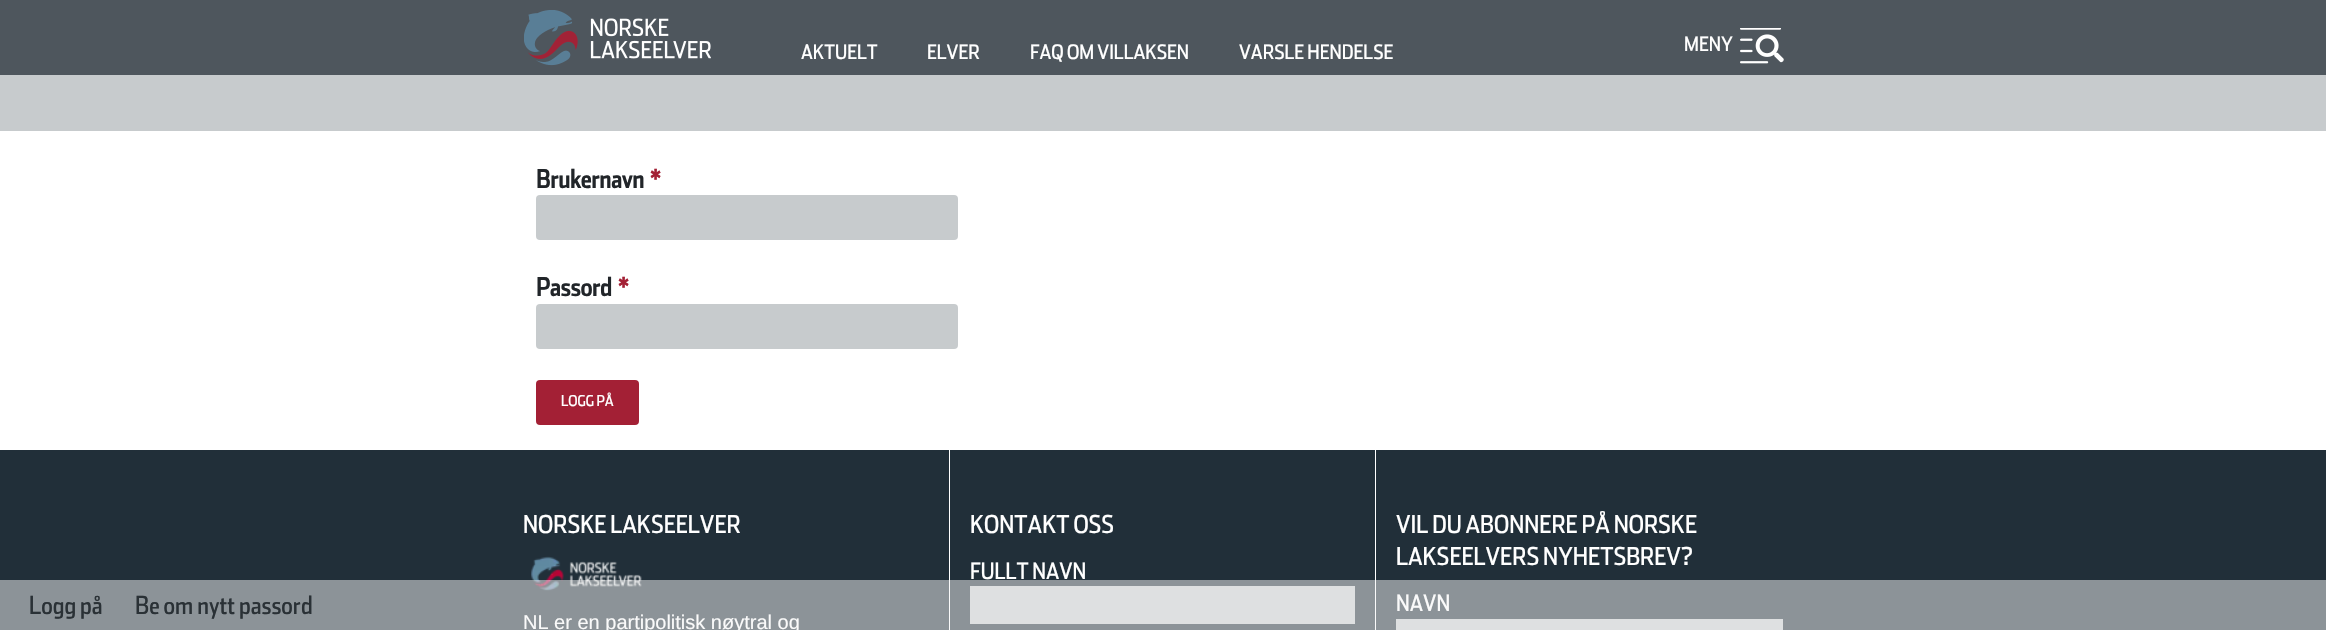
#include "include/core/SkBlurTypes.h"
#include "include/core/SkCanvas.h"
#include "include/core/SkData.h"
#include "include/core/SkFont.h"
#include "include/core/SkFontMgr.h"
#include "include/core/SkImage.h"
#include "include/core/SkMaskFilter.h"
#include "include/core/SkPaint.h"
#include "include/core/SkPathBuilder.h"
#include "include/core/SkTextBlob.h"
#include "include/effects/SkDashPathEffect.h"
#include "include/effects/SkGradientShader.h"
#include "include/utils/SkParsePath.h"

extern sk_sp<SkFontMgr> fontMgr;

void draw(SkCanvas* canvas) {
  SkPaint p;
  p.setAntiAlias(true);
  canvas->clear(SK_ColorWHITE);
  p.setColor(SkColorSetRGB(78, 86, 93));
  canvas->drawRect(SkRect::MakeLTRB(0, 0, 2326, 75), p);
  canvas->drawImageRect(SkImages::DeferredFromEncodedData(SkData::MakeFromFileName("images/1.png")), SkRect::MakeLTRB(524, 10, 711, 66), SkSamplingOptions());
  canvas->drawImageRect(SkImages::DeferredFromEncodedData(SkData::MakeFromFileName("images/2.png")), SkRect::MakeLTRB(1740, 28, 1784, 64), SkSamplingOptions());
  p.setColor(SkColorSetRGB(199, 203, 205));
  canvas->drawRect(SkRect::MakeLTRB(0, 75, 2326, 131), p);
  canvas->drawRoundRect(SkRect::MakeLTRB(536, 195, 958, 240), 4, 4, p);
  canvas->drawRoundRect(SkRect::MakeLTRB(536, 304, 958, 349), 4, 4, p);
  p.setColor(SkColorSetRGB(163, 32, 53));
  canvas->drawRoundRect(SkRect::MakeLTRB(536, 380, 639, 425), 4, 4, p);
  p.setColor(SkColorSetRGB(33, 47, 57));
  canvas->drawRect(SkRect::MakeLTRB(0, 450, 2326, 630), p);
  p.setColor(SK_ColorWHITE);
  canvas->drawRect(SkRect::MakeLTRB(949, 450, 950, 630), p);
  canvas->drawImageRect(SkImages::DeferredFromEncodedData(SkData::MakeFromFileName("images/3.png")), SkRect::MakeLTRB(531, 556, 642, 591), SkSamplingOptions());
  canvas->drawRect(SkRect::MakeLTRB(1375, 450, 1376, 630), p);
  p.setColor(SkColorSetRGB(199, 203, 205));
  canvas->drawRect(SkRect::MakeLTRB(970, 586, 1355, 624), p);
  canvas->drawRect(SkRect::MakeLTRB(1396, 619, 1783, 630), p);
  SkFont font1(fontMgr->matchFamilyStyle("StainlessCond", SkFontStyle::Normal()), 20);
  font1.setSubpixel(true);
  p.setColor(SK_ColorWHITE);
  canvas->drawString("AKTUELT", 801, 59, font1, p);
  canvas->drawString("ELVER", 927, 59, font1, p);
  canvas->drawString("FAQ OM VILLAKSEN", 1030, 59, font1, p);
  canvas->drawString("VARSLE HENDELSE", 1239, 59, font1, p);
  canvas->drawString("MENY", 1684, 51, font1, p);
  SkFont font2(fontMgr->matchFamilyStyle("StainlessCond", SkFontStyle::Bold()), 25);
  font2.setSubpixel(true);
  p.setColor(SkColorSetRGB(33, 37, 41));
  canvas->drawString("Brukernavn", 536, 188, font2, p);
  p.setColor(SkColorSetRGB(163, 32, 53));
  canvas->drawString("*", 650, 188, font2, p);
  p.setColor(SkColorSetRGB(33, 37, 41));
  canvas->drawString("Passord", 536, 296, font2, p);
  p.setColor(SkColorSetRGB(163, 32, 53));
  canvas->drawString("*", 618, 296, font2, p);
  SkFont font3(fontMgr->matchFamilyStyle("StainlessCond", SkFontStyle::Normal()), 15);
  font3.setSubpixel(true);
  p.setColor(SK_ColorWHITE);
  canvas->drawString("LOGG PÅ", 561, 406, font3, p);
  SkFont font4(fontMgr->matchFamilyStyle("StainlessCond", SkFontStyle::Normal()), 24.6f);
  font4.setSubpixel(true);
  canvas->drawString("NORSKE LAKSEELVER", 523, 533, font4, p);
  SkFont font5(fontMgr->matchFamilyStyle("Liberation Sans", SkFontStyle::Normal()), 20);
  font5.setSubpixel(true);
  canvas->drawString("NL er en partipolitisk nøytral og", 523, 629, font5, p);
  canvas->drawString("KONTAKT OSS", 970, 533, font4, p);
  SkFont font6(fontMgr->matchFamilyStyle("StainlessCond", SkFontStyle::Normal()), 22.5f);
  font6.setSubpixel(true);
  canvas->drawString("FULLT NAVN", 970, 579, font6, p);
  canvas->drawString("VIL DU ABONNERE PÅ NORSKE", 1396, 533, font4, p);
  canvas->drawString("LAKSEELVERS NYHETSBREV?", 1396, 565, font4, p);
  canvas->drawString("NAVN", 1396, 611, font6, p);
  p.setColor(SkColorSetARGB(128, 245, 245, 245));
  canvas->drawRect(SkRect::MakeLTRB(0, 580, 2326, 630), p);
  SkFont font7(fontMgr->matchFamilyStyle("StainlessCond", SkFontStyle::Normal()), 25);
  font7.setSubpixel(true);
  p.setColor(SkColorSetRGB(42, 49, 54));
  canvas->drawString("Be om nytt passord", 135, 614, font7, p);
  canvas->drawString("Logg på", 29, 614, font7, p);
}
